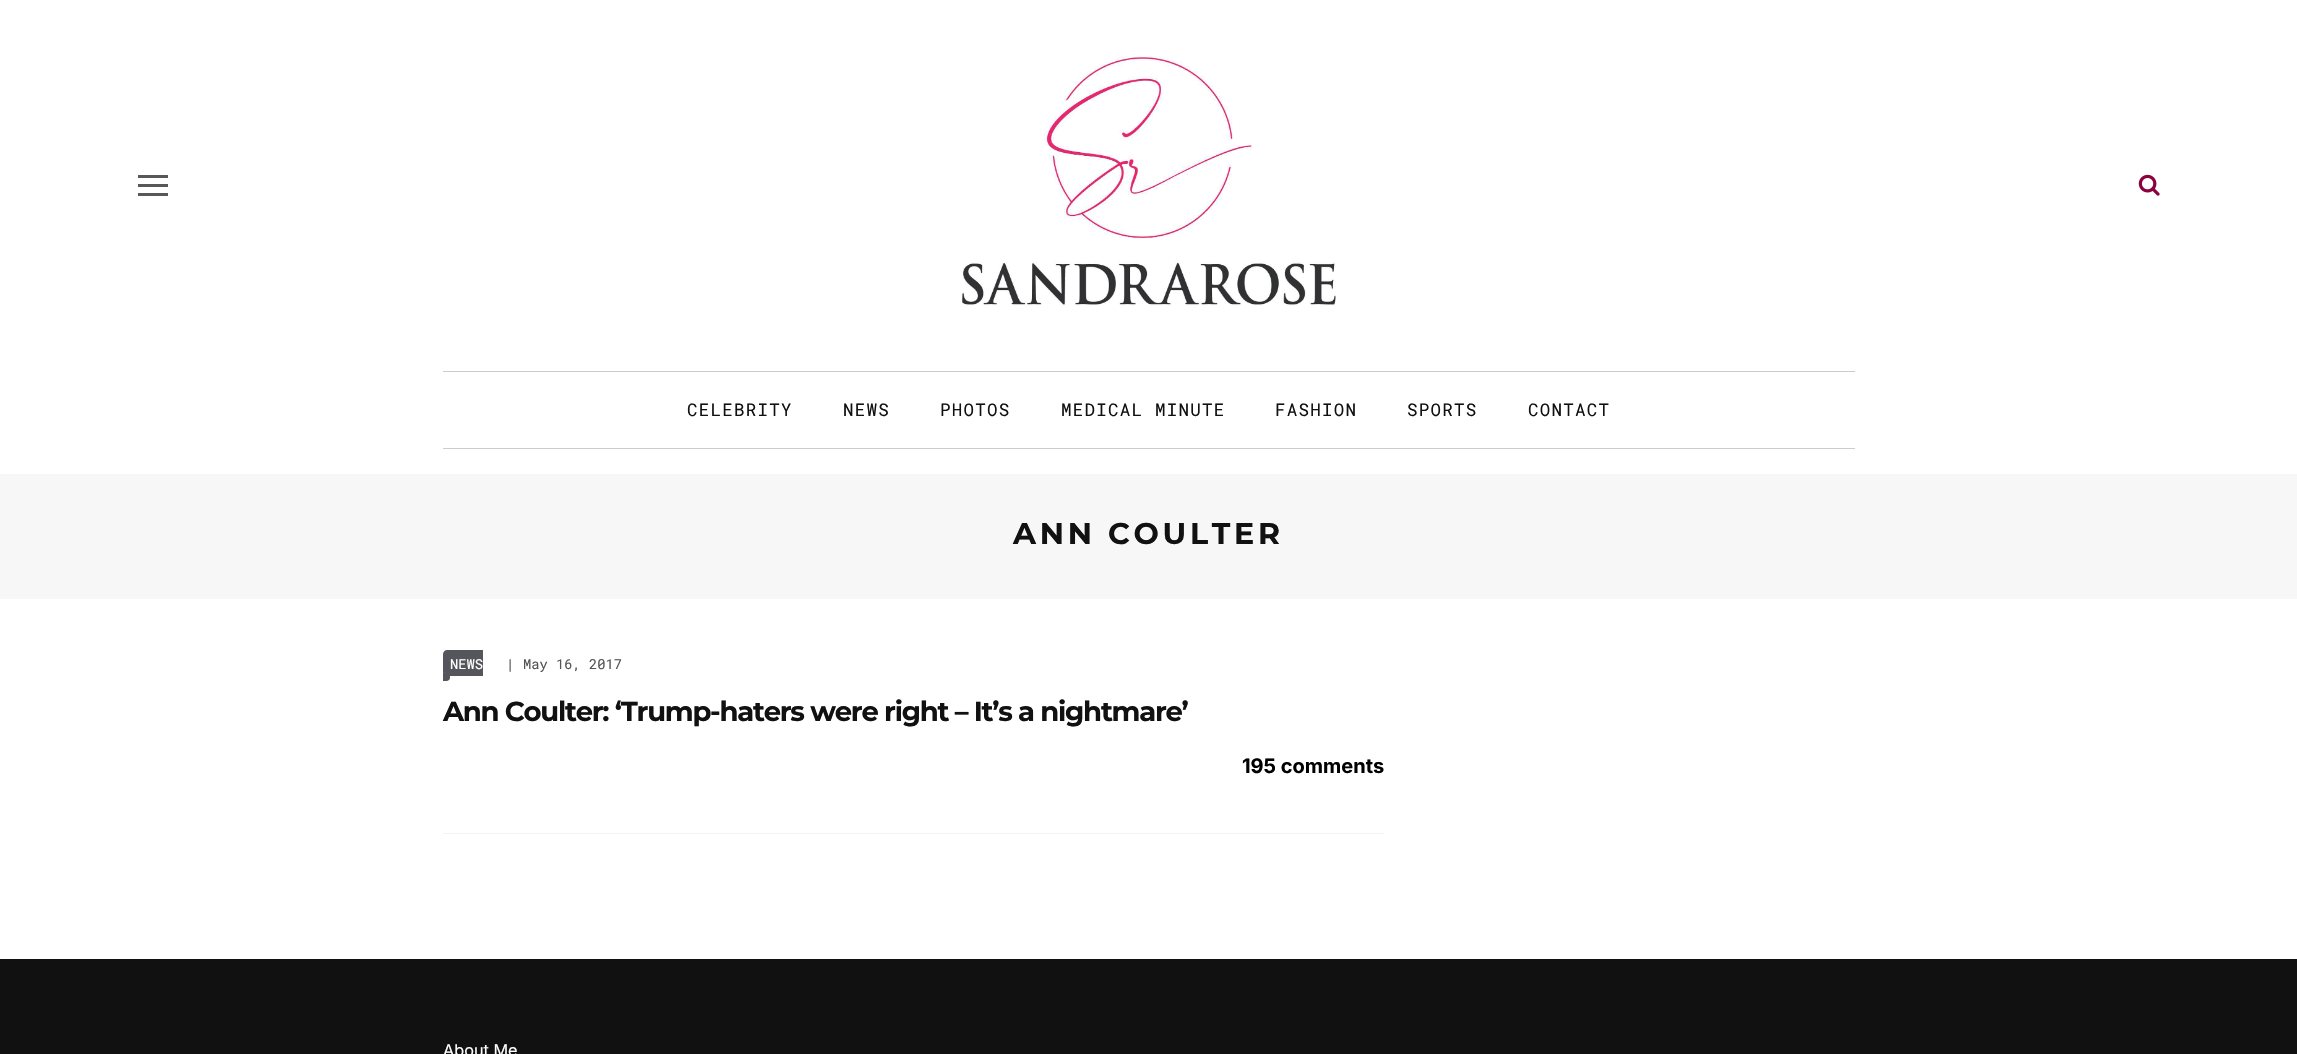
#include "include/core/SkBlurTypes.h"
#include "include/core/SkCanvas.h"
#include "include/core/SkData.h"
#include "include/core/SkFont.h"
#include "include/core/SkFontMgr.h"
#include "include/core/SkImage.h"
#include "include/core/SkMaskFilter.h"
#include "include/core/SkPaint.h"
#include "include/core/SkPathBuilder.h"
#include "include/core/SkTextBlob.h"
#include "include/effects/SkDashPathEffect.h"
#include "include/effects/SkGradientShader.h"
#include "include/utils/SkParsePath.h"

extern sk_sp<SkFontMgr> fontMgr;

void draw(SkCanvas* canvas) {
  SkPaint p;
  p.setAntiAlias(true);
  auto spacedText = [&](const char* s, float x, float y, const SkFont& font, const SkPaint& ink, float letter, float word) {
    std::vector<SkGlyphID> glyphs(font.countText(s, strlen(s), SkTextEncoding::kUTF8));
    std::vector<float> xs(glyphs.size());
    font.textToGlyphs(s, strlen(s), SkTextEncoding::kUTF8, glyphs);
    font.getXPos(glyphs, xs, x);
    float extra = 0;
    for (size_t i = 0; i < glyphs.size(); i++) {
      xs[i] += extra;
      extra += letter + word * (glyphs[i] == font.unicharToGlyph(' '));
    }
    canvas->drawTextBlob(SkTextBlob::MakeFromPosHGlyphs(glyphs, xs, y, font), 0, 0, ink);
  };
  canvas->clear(SK_ColorWHITE);
  p.setColor(SkColorSetRGB(88, 88, 88));
  canvas->drawRect(SkRect::MakeLTRB(138, 184, 168, 187), p);
  canvas->drawRect(SkRect::MakeLTRB(138, 175, 168, 178), p);
  canvas->drawRect(SkRect::MakeLTRB(138, 193, 168, 196), p);
  canvas->drawImageRect(SkImages::DeferredFromEncodedData(SkData::MakeFromFileName("images/1.png")), SkRect::MakeLTRB(961, 56, 1336, 306), SkSamplingOptions());
  canvas->drawImageRect(SkImages::DeferredFromEncodedData(SkData::MakeFromFileName("images/2.png")), SkRect::MakeLTRB(2138, 174, 2160, 196), SkSamplingOptions());
  p.setColor(SkColorSetRGB(204, 204, 204));
  canvas->drawRect(SkRect::MakeLTRB(443, 371, 1855, 372), p);
  canvas->drawRect(SkRect::MakeLTRB(443, 448, 1855, 449), p);
  p.setColor(SkColorSetRGB(247, 247, 247));
  canvas->drawRect(SkRect::MakeLTRB(0, 474, 2297, 599), p);
  p.setColor(SkColorSetRGB(242, 242, 242));
  canvas->drawRect(SkRect::MakeLTRB(443, 833, 1384, 834), p);
  p.setColor(SkColorSetRGB(84, 86, 91));
  canvas->drawPath(SkPathBuilder().moveTo(447, 650).lineTo(483, 650).lineTo(483, 676).lineTo(447, 676).cubicTo(445, 676, 443, 674, 443, 672).lineTo(443, 654).cubicTo(443, 652, 445, 650, 447, 650).close().detach(), p);
  canvas->drawPath(SkPathBuilder().moveTo(443, 673).lineTo(446.5f, 673).cubicTo(448.5f, 673, 450, 674.5f, 450, 676.5f).lineTo(450, 677.5f).cubicTo(450, 679.5f, 448.5f, 681, 446.5f, 681).lineTo(443, 681).close().detach(), p);
  p.setColor(SkColorSetRGB(17, 17, 17));
  canvas->drawRect(SkRect::MakeLTRB(0, 959, 2297, 1054), p);
  SkFont font1(fontMgr->matchFamilyStyle("Roboto Mono", SkFontStyle::Normal()), 17.5f);
  font1.setSubpixel(true);
  spacedText("CELEBRITY", 687, 416, font1, p, 1.25f, 0);
  spacedText("NEWS", 843, 416, font1, p, 1.25f, 0);
  spacedText("PHOTOS", 940, 416, font1, p, 1.25f, 0);
  spacedText("MEDICAL MINUTE", 1061, 416, font1, p, 1.25f, 0);
  spacedText("FASHION", 1275, 416, font1, p, 1.25f, 0);
  spacedText("SPORTS", 1407, 416, font1, p, 1.25f, 0);
  spacedText("CONTACT", 1528, 416, font1, p, 1.25f, 0);
  SkFont font2(fontMgr->matchFamilyStyle("Montserrat", SkFontStyle::Bold()), 30);
  font2.setSubpixel(true);
  spacedText("ANN COULTER", 1013, 544, font2, p, 3.75f, 0);
  SkFont font3(fontMgr->matchFamilyStyle("Roboto Mono", SkFontStyle::Normal()), 13.75f);
  font3.setSubpixel(true);
  p.setColor(SK_ColorWHITE);
  canvas->drawString("NEWS", 450, 669, font3, p);
  p.setColor(SkColorSetRGB(85, 85, 85));
  canvas->drawString("|", 506, 669, font3, p);
  canvas->drawString("May 16, 2017", 523, 669, font3, p);
  SkFont font4(fontMgr->matchFamilyStyle("Montserrat", SkFontStyle::Bold()), 27.5f);
  font4.setSubpixel(true);
  p.setColor(SkColorSetRGB(17, 17, 17));
  spacedText("Ann Coulter: ‘Trump-haters were right – It’s a nightmare’", 443, 721, font4, p, -1.25f, 0);
  SkFont font5(fontMgr->matchFamilyStyle("Inter", SkFontStyle::Bold()), 20);
  font5.setSubpixel(true);
  p.setColor(SK_ColorBLACK);
  canvas->drawString("195 comments", 1242, 773, font5, p);
  SkFont font6(fontMgr->matchFamilyStyle("Inter", SkFontStyle::Normal()), 16.25f);
  font6.setSubpixel(true);
  p.setColor(SK_ColorWHITE);
  canvas->drawString("About Me", 443, 1056, font6, p);
}
